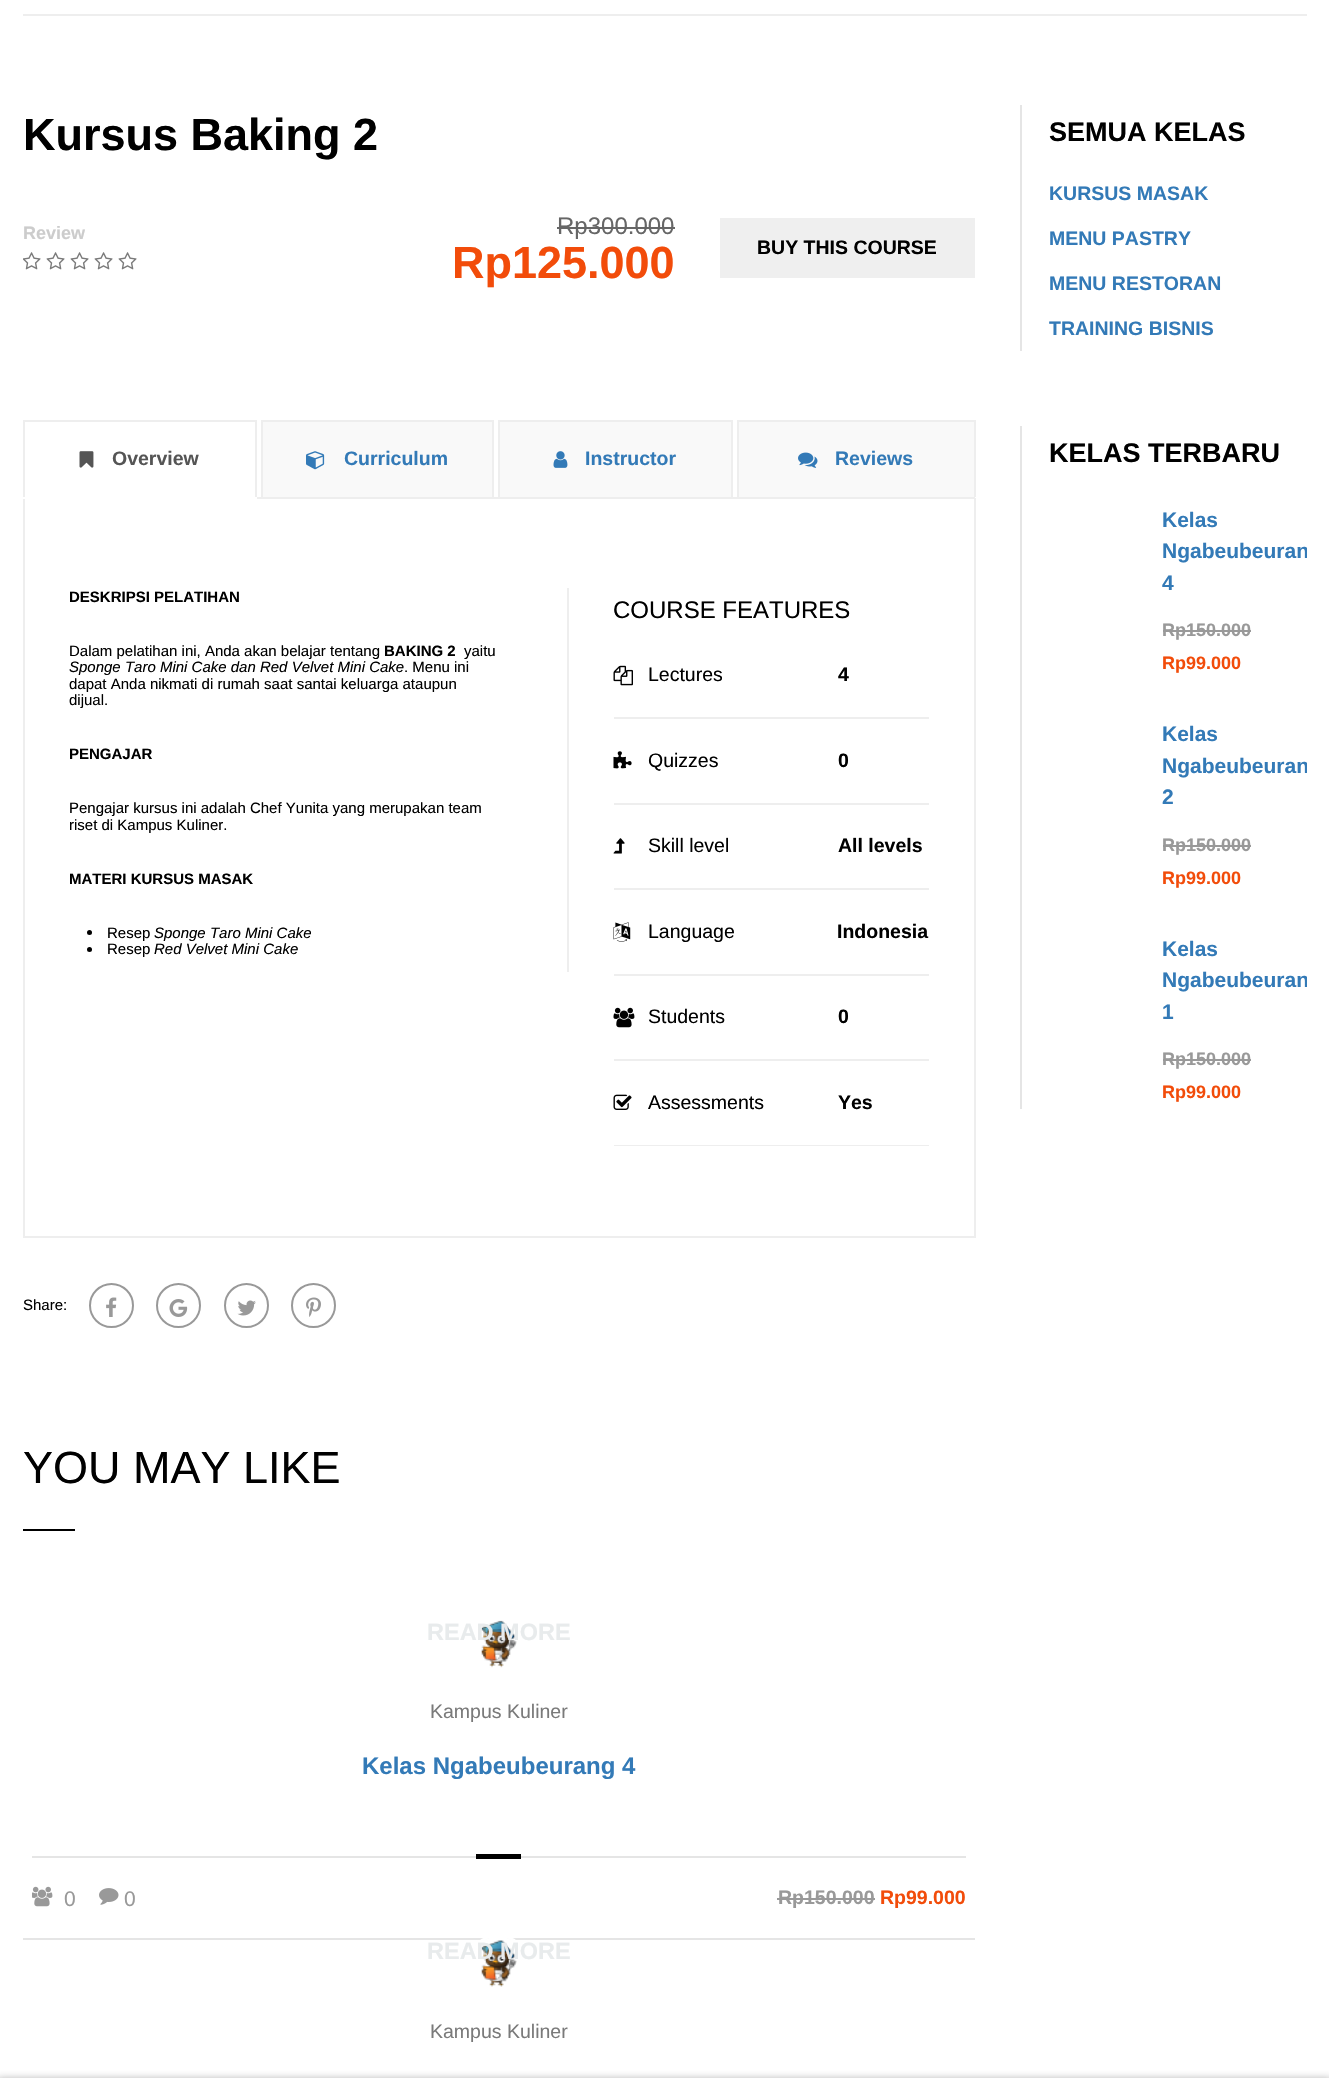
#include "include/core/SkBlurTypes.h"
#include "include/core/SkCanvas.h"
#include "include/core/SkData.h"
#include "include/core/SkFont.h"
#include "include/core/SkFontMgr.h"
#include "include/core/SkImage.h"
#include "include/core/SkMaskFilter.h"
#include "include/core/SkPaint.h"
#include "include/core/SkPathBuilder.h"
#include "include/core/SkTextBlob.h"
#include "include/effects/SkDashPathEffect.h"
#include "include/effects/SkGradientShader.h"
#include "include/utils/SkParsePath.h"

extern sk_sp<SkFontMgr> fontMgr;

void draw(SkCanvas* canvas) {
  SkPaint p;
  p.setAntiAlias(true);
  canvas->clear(SK_ColorWHITE);
  p.setColor(SkColorSetRGB(238, 238, 238));
  canvas->drawRect(SkRect::MakeLTRB(23, 14, 1307, 16), p);
  canvas->drawImageRect(SkImages::DeferredFromEncodedData(SkData::MakeFromFileName("images/1.png")), SkRect::MakeLTRB(23, 252, 41, 270), SkSamplingOptions());
  canvas->drawImageRect(SkImages::DeferredFromEncodedData(SkData::MakeFromFileName("images/2.png")), SkRect::MakeLTRB(46, 252, 65, 270), SkSamplingOptions());
  canvas->drawImageRect(SkImages::DeferredFromEncodedData(SkData::MakeFromFileName("images/2.png")), SkRect::MakeLTRB(70, 252, 89, 270), SkSamplingOptions());
  canvas->drawImageRect(SkImages::DeferredFromEncodedData(SkData::MakeFromFileName("images/2.png")), SkRect::MakeLTRB(94, 252, 113, 270), SkSamplingOptions());
  canvas->drawImageRect(SkImages::DeferredFromEncodedData(SkData::MakeFromFileName("images/2.png")), SkRect::MakeLTRB(118, 252, 137, 270), SkSamplingOptions());
  p.setColor(SkColorSetRGB(102, 102, 102));
  canvas->drawRect(SkRect::MakeLTRB(557, 227, 675, 229), p);
  p.setColor(SkColorSetRGB(239, 239, 239));
  canvas->drawRect(SkRect::MakeLTRB(720, 218, 975, 278), p);
  p.setColor(SkColorSetRGB(238, 238, 238));
  canvas->drawRect(SkRect::MakeLTRB(257, 497, 975, 499), p);
  canvas->drawRect(SkRect::MakeLTRB(23, 420, 257, 422), p);
  canvas->drawRect(SkRect::MakeLTRB(255, 420, 257, 497), p);
  canvas->drawRect(SkRect::MakeLTRB(23, 420, 25, 497), p);
  canvas->drawImageRect(SkImages::DeferredFromEncodedData(SkData::MakeFromFileName("images/3.png")), SkRect::MakeLTRB(79, 451, 94, 468), SkSamplingOptions());
  canvas->drawRect(SkRect::MakeLTRB(974, 498, 976, 1238), p);
  canvas->drawRect(SkRect::MakeLTRB(23, 1236, 975, 1238), p);
  canvas->drawRect(SkRect::MakeLTRB(23, 498, 25, 1238), p);
  p.setColor(SK_ColorWHITE);
  canvas->drawRect(SkRect::MakeLTRB(23, 498, 25, 499), p);
  p.setColor(SkColorSetRGB(249, 249, 249));
  canvas->drawRect(SkRect::MakeLTRB(263, 422, 492, 497), p);
  p.setColor(SkColorSetRGB(238, 238, 238));
  canvas->drawRect(SkRect::MakeLTRB(261, 420, 494, 422), p);
  canvas->drawRect(SkRect::MakeLTRB(492, 420, 494, 497), p);
  canvas->drawRect(SkRect::MakeLTRB(261, 420, 263, 497), p);
  canvas->drawImageRect(SkImages::DeferredFromEncodedData(SkData::MakeFromFileName("images/4.png")), SkRect::MakeLTRB(306, 451, 325, 470), SkSamplingOptions());
  p.setColor(SkColorSetRGB(249, 249, 249));
  canvas->drawRect(SkRect::MakeLTRB(500, 422, 731, 497), p);
  p.setColor(SkColorSetRGB(238, 238, 238));
  canvas->drawRect(SkRect::MakeLTRB(498, 420, 732, 422), p);
  canvas->drawRect(SkRect::MakeLTRB(731, 420, 733, 497), p);
  canvas->drawRect(SkRect::MakeLTRB(498, 420, 500, 497), p);
  canvas->drawImageRect(SkImages::DeferredFromEncodedData(SkData::MakeFromFileName("images/5.png")), SkRect::MakeLTRB(553, 451, 568, 468), SkSamplingOptions());
  p.setColor(SkColorSetRGB(249, 249, 249));
  canvas->drawRect(SkRect::MakeLTRB(739, 422, 974, 497), p);
  p.setColor(SkColorSetRGB(238, 238, 238));
  canvas->drawRect(SkRect::MakeLTRB(737, 420, 975, 422), p);
  canvas->drawRect(SkRect::MakeLTRB(974, 420, 976, 497), p);
  canvas->drawRect(SkRect::MakeLTRB(737, 420, 739, 497), p);
  canvas->drawImageRect(SkImages::DeferredFromEncodedData(SkData::MakeFromFileName("images/6.png")), SkRect::MakeLTRB(798, 452, 818, 468), SkSamplingOptions());
  canvas->drawRect(SkRect::MakeLTRB(567, 588, 569, 972), p);
  p.setColor(SK_ColorBLACK);
  canvas->drawCircle(89.5f, 932.5f, 2.5f, p);
  canvas->drawCircle(89.5f, 949.5f, 2.5f, p);
  p.setColor(SkColorSetRGB(238, 238, 238));
  canvas->drawRect(SkRect::MakeLTRB(614, 717, 929, 719), p);
  canvas->drawImageRect(SkImages::DeferredFromEncodedData(SkData::MakeFromFileName("images/7.png")), SkRect::MakeLTRB(613, 665, 633, 686), SkSamplingOptions());
  canvas->drawRect(SkRect::MakeLTRB(614, 803, 929, 805), p);
  canvas->drawImageRect(SkImages::DeferredFromEncodedData(SkData::MakeFromFileName("images/8.png")), SkRect::MakeLTRB(613, 751, 632, 769), SkSamplingOptions());
  canvas->drawRect(SkRect::MakeLTRB(614, 888, 929, 890), p);
  canvas->drawImageRect(SkImages::DeferredFromEncodedData(SkData::MakeFromFileName("images/9.png")), SkRect::MakeLTRB(613, 838, 625, 854), SkSamplingOptions());
  canvas->drawRect(SkRect::MakeLTRB(614, 974, 929, 976), p);
  canvas->drawImageRect(SkImages::DeferredFromEncodedData(SkData::MakeFromFileName("images/10.png")), SkRect::MakeLTRB(613, 922, 631, 942), SkSamplingOptions());
  canvas->drawRect(SkRect::MakeLTRB(614, 1059, 929, 1061), p);
  canvas->drawImageRect(SkImages::DeferredFromEncodedData(SkData::MakeFromFileName("images/11.png")), SkRect::MakeLTRB(613, 1007, 635, 1028), SkSamplingOptions());
  canvas->drawRect(SkRect::MakeLTRB(614, 1145, 929, 1146), p);
  canvas->drawImageRect(SkImages::DeferredFromEncodedData(SkData::MakeFromFileName("images/12.png")), SkRect::MakeLTRB(613, 1094, 632, 1110), SkSamplingOptions());
  p.setColor(SkColorSetARGB(102, 42, 42, 42));
  p.setMaskFilter(SkMaskFilter::MakeBlur(kNormal_SkBlurStyle, 4.5f));
  canvas->drawRect(SkRect::MakeLTRB(-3, 2079, 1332, 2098), p);
  p.setMaskFilter(nullptr);
  p.setColor(SK_ColorWHITE);
  canvas->drawRect(SkRect::MakeLTRB(0, 2078, 1329, 2084), p);
  p.setStyle(SkPaint::kStroke_Style);
  p.setStrokeWidth(2);
  p.setColor(SkColorSetRGB(153, 153, 153));
  canvas->drawCircle(111.5f, 1305.5f, 21.5f, p);
  canvas->drawImageRect(SkImages::DeferredFromEncodedData(SkData::MakeFromFileName("images/13.png")), SkRect::MakeLTRB(106, 1297, 117, 1317), SkSamplingOptions());
  canvas->drawCircle(178.5f, 1305.5f, 21.5f, p);
  canvas->drawImageRect(SkImages::DeferredFromEncodedData(SkData::MakeFromFileName("images/14.png")), SkRect::MakeLTRB(169, 1299, 188, 1317), SkSamplingOptions());
  canvas->drawCircle(246.5f, 1305.5f, 21.5f, p);
  canvas->drawImageRect(SkImages::DeferredFromEncodedData(SkData::MakeFromFileName("images/15.png")), SkRect::MakeLTRB(237, 1300, 256, 1316), SkSamplingOptions());
  canvas->drawCircle(313.5f, 1305.5f, 21.5f, p);
  canvas->drawImageRect(SkImages::DeferredFromEncodedData(SkData::MakeFromFileName("images/16.png")), SkRect::MakeLTRB(306, 1297, 321, 1317), SkSamplingOptions());
  p.setStyle(SkPaint::kFill_Style);
  p.setColor(SK_ColorBLACK);
  canvas->drawRect(SkRect::MakeLTRB(23, 1529, 75, 1531), p);
  p.setColor(SkColorSetRGB(229, 229, 229));
  canvas->drawRect(SkRect::MakeLTRB(23, 1938, 975, 1940), p);
  canvas->drawImageRect(SkImages::DeferredFromEncodedData(SkData::MakeFromFileName("images/17.png")), SkRect::MakeLTRB(481, 1620, 517, 1668), SkSamplingOptions());
  canvas->drawRect(SkRect::MakeLTRB(32, 1856, 966, 1858), p);
  p.setColor(SK_ColorBLACK);
  canvas->drawRect(SkRect::MakeLTRB(476, 1854, 521, 1859), p);
  canvas->drawImageRect(SkImages::DeferredFromEncodedData(SkData::MakeFromFileName("images/18.png")), SkRect::MakeLTRB(32, 1886, 53, 1907), SkSamplingOptions());
  canvas->drawImageRect(SkImages::DeferredFromEncodedData(SkData::MakeFromFileName("images/19.png")), SkRect::MakeLTRB(99, 1888, 119, 1905), SkSamplingOptions());
  p.setColor(SkColorSetRGB(153, 153, 153));
  canvas->drawRect(SkRect::MakeLTRB(777, 1898, 875, 1900), p);
  p.setStyle(SkPaint::kStroke_Style);
  p.setStrokeWidth(3);
  p.setColor(SK_ColorWHITE);
  canvas->drawCircle(498, 1964, 28.5f, p);
  canvas->drawImageRect(SkImages::DeferredFromEncodedData(SkData::MakeFromFileName("images/20.png")), SkRect::MakeLTRB(481, 1938, 517, 1987), SkSamplingOptions());
  p.setStyle(SkPaint::kFill_Style);
  p.setColor(SkColorSetRGB(229, 229, 229));
  canvas->drawRect(SkRect::MakeLTRB(1020, 105, 1022, 351), p);
  canvas->drawRect(SkRect::MakeLTRB(1020, 426, 1022, 1109), p);
  p.setColor(SkColorSetRGB(153, 153, 153));
  canvas->drawRect(SkRect::MakeLTRB(1163, 630, 1251, 632), p);
  canvas->drawRect(SkRect::MakeLTRB(1163, 845, 1251, 847), p);
  canvas->drawRect(SkRect::MakeLTRB(1163, 1059, 1251, 1061), p);
  SkFont font1(fontMgr->matchFamilyStyle("Liberation Sans", SkFontStyle::Bold()), 45);
  font1.setSubpixel(true);
  p.setColor(SK_ColorBLACK);
  canvas->drawString("Kursus Baking 2", 23, 150, font1, p);
  SkFont font2(fontMgr->matchFamilyStyle("Liberation Sans", SkFontStyle::Bold()), 18);
  font2.setSubpixel(true);
  p.setColor(SkColorSetRGB(204, 204, 204));
  canvas->drawString("Review", 23, 239, font2, p);
  SkFont font3(fontMgr->matchFamilyStyle("Liberation Sans", SkFontStyle::Normal()), 24);
  font3.setSubpixel(true);
  p.setColor(SkColorSetRGB(102, 102, 102));
  canvas->drawString("Rp300.000", 557, 234, font3, p);
  p.setColor(SkColorSetRGB(242, 76, 10));
  canvas->drawString("Rp125.000", 452, 278, font1, p);
  SkFont font4(fontMgr->matchFamilyStyle("Liberation Sans", SkFontStyle::Bold()), 19.5f);
  font4.setSubpixel(true);
  p.setColor(SK_ColorBLACK);
  canvas->drawString("BUY THIS COURSE", 757, 254, font4, p);
  p.setColor(SkColorSetRGB(85, 85, 85));
  canvas->drawString("Overview", 112, 465, font4, p);
  p.setColor(SkColorSetRGB(51, 122, 183));
  canvas->drawString("Curriculum", 344, 465, font4, p);
  canvas->drawString("Instructor", 585, 465, font4, p);
  canvas->drawString("Reviews", 835, 465, font4, p);
  SkFont font5(fontMgr->matchFamilyStyle("Liberation Sans", SkFontStyle::Bold()), 15);
  font5.setSubpixel(true);
  p.setColor(SK_ColorBLACK);
  canvas->drawString("DESKRIPSI PELATIHAN", 69, 602, font5, p);
  SkFont font6(fontMgr->matchFamilyStyle("Liberation Sans", SkFontStyle::Normal()), 15);
  font6.setSubpixel(true);
  canvas->drawString("Dalam pelatihan ini, Anda akan belajar tentang", 69, 656, font6, p);
  canvas->drawString("BAKING 2", 384, 656, font5, p);
  canvas->drawString("yaitu", 464, 656, font6, p);
  SkFont font7(fontMgr->matchFamilyStyle("Liberation Sans", SkFontStyle::Italic()), 15);
  font7.setSubpixel(true);
  canvas->drawString("Sponge Taro Mini Cake dan Red Velvet Mini Cake", 69, 672, font7, p);
  canvas->drawString(". Menu ini", 404, 672, font6, p);
  canvas->drawString("dapat Anda nikmati di rumah saat santai keluarga ataupun", 69, 689, font6, p);
  canvas->drawString("dijual.", 69, 705, font6, p);
  canvas->drawString("PENGAJAR", 69, 759, font5, p);
  canvas->drawString("Pengajar kursus ini adalah Chef Yunita yang merupakan team", 69, 813, font6, p);
  canvas->drawString("riset di Kampus Kuliner.", 69, 830, font6, p);
  canvas->drawString("MATERI KURSUS MASAK", 69, 884, font5, p);
  canvas->drawString("Resep", 107, 938, font6, p);
  canvas->drawString("Sponge Taro Mini Cake", 154, 938, font7, p);
  canvas->drawString("Resep", 107, 954, font6, p);
  canvas->drawString("Red Velvet Mini Cake", 154, 954, font7, p);
  canvas->drawString("COURSE FEATURES", 613, 618, font3, p);
  SkFont font8(fontMgr->matchFamilyStyle("Liberation Sans", SkFontStyle::Normal()), 19.5f);
  font8.setSubpixel(true);
  canvas->drawString("Lectures", 648, 681, font8, p);
  canvas->drawString("4", 838, 681, font4, p);
  canvas->drawString("Quizzes", 648, 767, font8, p);
  canvas->drawString("0", 838, 767, font4, p);
  canvas->drawString("Skill level", 648, 852, font8, p);
  canvas->drawString("All levels", 838, 852, font4, p);
  canvas->drawString("Language", 648, 938, font8, p);
  canvas->drawString("Indonesia", 837, 938, font4, p);
  canvas->drawString("Students", 648, 1023, font8, p);
  canvas->drawString("0", 838, 1023, font4, p);
  canvas->drawString("Assessments", 648, 1109, font8, p);
  canvas->drawString("Yes", 838, 1109, font4, p);
  canvas->drawString("Share:", 23, 1310, font6, p);
  SkFont font9(fontMgr->matchFamilyStyle("Liberation Sans", SkFontStyle::Normal()), 45);
  font9.setSubpixel(true);
  canvas->drawString("YOU MAY LIKE", 23, 1483, font9, p);
  SkFont font10(fontMgr->matchFamilyStyle("Liberation Sans", SkFontStyle::Bold()), 23.5f);
  font10.setSubpixel(true);
  p.setColor(SkColorSetRGB(232, 235, 236));
  canvas->drawString("READ MORE", 427, 1640, font10, p);
  p.setColor(SkColorSetRGB(122, 122, 122));
  canvas->drawString("Kampus Kuliner", 430, 1718, font8, p);
  SkFont font11(fontMgr->matchFamilyStyle("Liberation Sans", SkFontStyle::Bold()), 24);
  font11.setSubpixel(true);
  p.setColor(SkColorSetRGB(51, 122, 183));
  canvas->drawString("Kelas Ngabeubeurang 4", 362, 1774, font11, p);
  SkFont font12(fontMgr->matchFamilyStyle("Liberation Sans", SkFontStyle::Normal()), 21);
  font12.setSubpixel(true);
  p.setColor(SkColorSetRGB(153, 153, 153));
  canvas->drawString("0", 64, 1906, font12, p);
  canvas->drawString("0", 124, 1906, font12, p);
  canvas->drawString("Rp150.000", 778, 1904, font4, p);
  p.setColor(SkColorSetRGB(242, 76, 10));
  canvas->drawString("Rp99.000", 880, 1904, font4, p);
  p.setColor(SkColorSetRGB(232, 235, 236));
  canvas->drawString("READ MORE", 427, 1959, font10, p);
  p.setColor(SkColorSetRGB(122, 122, 122));
  canvas->drawString("Kampus Kuliner", 430, 2038, font8, p);
  SkFont font13(fontMgr->matchFamilyStyle("Liberation Sans", SkFontStyle::Bold()), 27);
  font13.setSubpixel(true);
  p.setColor(SK_ColorBLACK);
  canvas->drawString("SEMUA KELAS", 1049, 141, font13, p);
  p.setColor(SkColorSetRGB(51, 122, 183));
  canvas->drawString("KURSUS MASAK", 1049, 200, font4, p);
  canvas->drawString("MENU PASTRY", 1049, 245, font4, p);
  canvas->drawString("MENU RESTORAN", 1049, 290, font4, p);
  canvas->drawString("TRAINING BISNIS", 1049, 335, font4, p);
  p.setColor(SK_ColorBLACK);
  canvas->drawString("KELAS TERBARU", 1049, 462, font13, p);
  SkFont font14(fontMgr->matchFamilyStyle("Liberation Sans", SkFontStyle::Bold()), 21);
  font14.setSubpixel(true);
  p.setColor(SkColorSetRGB(51, 122, 183));
  canvas->drawString("Kelas", 1162, 527, font14, p);
  canvas->save();
  canvas->clipRect(SkRect::MakeLTRB(1050, 510, 1307, 680));
  canvas->drawString("Ngabeubeuran", 1162, 558, font14, p);
  canvas->restore();
  canvas->drawString("4", 1162, 590, font14, p);
  p.setColor(SkColorSetRGB(153, 153, 153));
  canvas->drawString("Rp150.000", 1162, 636, font2, p);
  p.setColor(SkColorSetRGB(242, 76, 10));
  canvas->drawString("Rp99.000", 1162, 669, font2, p);
  p.setColor(SkColorSetRGB(51, 122, 183));
  canvas->drawString("Kelas", 1162, 741, font14, p);
  canvas->save();
  canvas->clipRect(SkRect::MakeLTRB(1050, 725, 1307, 894));
  canvas->drawString("Ngabeubeuran", 1162, 773, font14, p);
  canvas->restore();
  canvas->drawString("2", 1162, 804, font14, p);
  p.setColor(SkColorSetRGB(153, 153, 153));
  canvas->drawString("Rp150.000", 1162, 851, font2, p);
  p.setColor(SkColorSetRGB(242, 76, 10));
  canvas->drawString("Rp99.000", 1162, 884, font2, p);
  p.setColor(SkColorSetRGB(51, 122, 183));
  canvas->drawString("Kelas", 1162, 956, font14, p);
  canvas->save();
  canvas->clipRect(SkRect::MakeLTRB(1050, 939, 1307, 1109));
  canvas->drawString("Ngabeubeuran", 1162, 987, font14, p);
  canvas->restore();
  canvas->drawString("1", 1162, 1019, font14, p);
  p.setColor(SkColorSetRGB(153, 153, 153));
  canvas->drawString("Rp150.000", 1162, 1065, font2, p);
  p.setColor(SkColorSetRGB(242, 76, 10));
  canvas->drawString("Rp99.000", 1162, 1098, font2, p);
}
